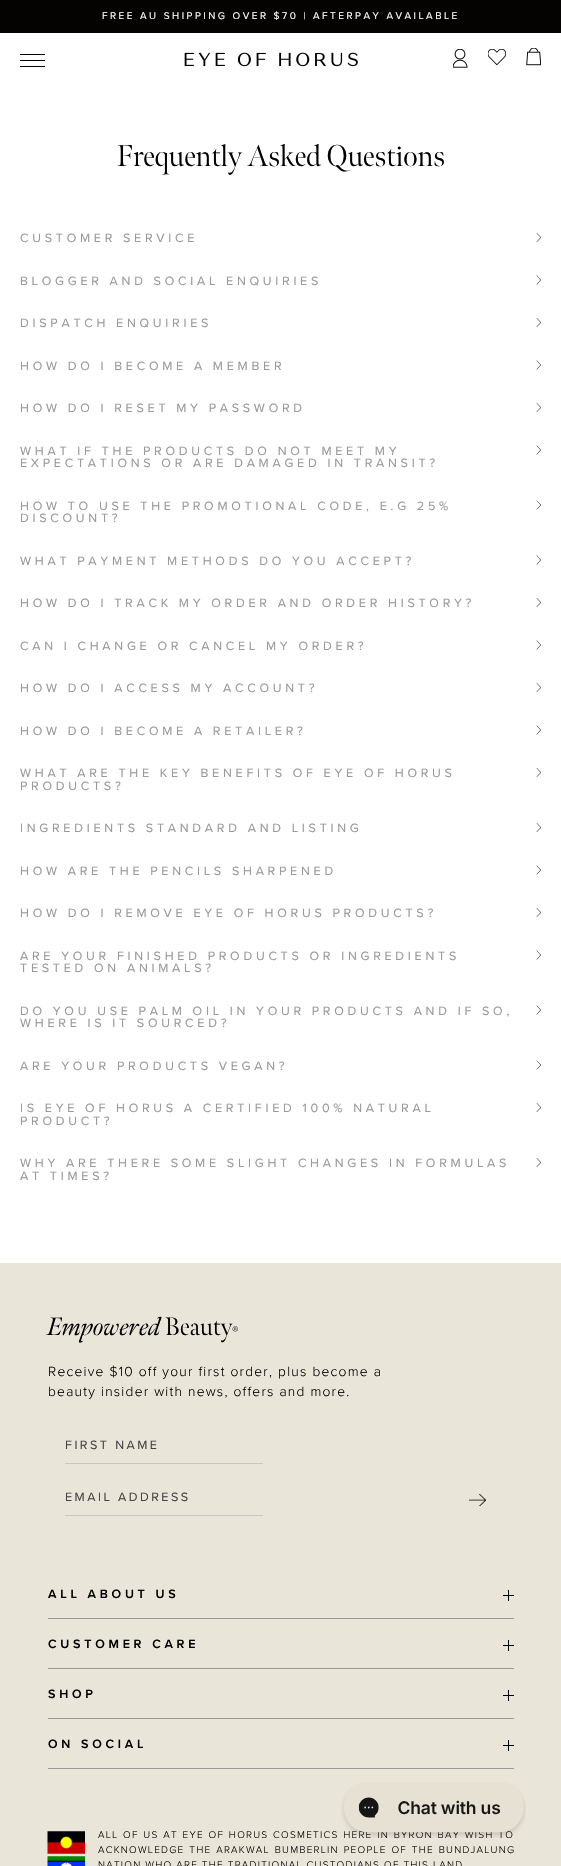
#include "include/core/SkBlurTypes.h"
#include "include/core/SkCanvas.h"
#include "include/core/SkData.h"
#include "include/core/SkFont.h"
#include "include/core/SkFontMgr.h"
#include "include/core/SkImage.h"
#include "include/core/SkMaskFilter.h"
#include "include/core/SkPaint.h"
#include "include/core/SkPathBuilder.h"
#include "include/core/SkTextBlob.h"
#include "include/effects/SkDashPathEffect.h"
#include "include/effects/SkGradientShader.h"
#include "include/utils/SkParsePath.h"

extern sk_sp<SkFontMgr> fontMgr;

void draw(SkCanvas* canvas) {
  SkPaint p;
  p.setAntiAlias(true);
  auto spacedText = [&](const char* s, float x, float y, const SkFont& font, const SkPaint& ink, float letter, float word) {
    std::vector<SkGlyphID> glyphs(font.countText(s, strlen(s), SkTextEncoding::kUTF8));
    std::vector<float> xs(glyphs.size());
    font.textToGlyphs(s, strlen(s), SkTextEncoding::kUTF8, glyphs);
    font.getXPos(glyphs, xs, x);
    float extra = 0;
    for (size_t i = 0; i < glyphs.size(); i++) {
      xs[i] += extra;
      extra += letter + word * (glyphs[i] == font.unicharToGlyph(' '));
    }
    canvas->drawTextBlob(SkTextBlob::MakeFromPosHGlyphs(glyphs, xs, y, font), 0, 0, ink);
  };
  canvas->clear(SK_ColorWHITE);
  p.setColor(SkColorSetRGB(5, 2, 2));
  canvas->drawRect(SkRect::MakeLTRB(0, 0, 561, 33), p);
  p.setColor(SK_ColorBLACK);
  canvas->drawRect(SkRect::MakeLTRB(20, 54, 45, 55), p);
  canvas->drawRect(SkRect::MakeLTRB(20, 60, 45, 61), p);
  canvas->drawRect(SkRect::MakeLTRB(20, 66, 45, 67), p);
  canvas->drawImageRect(SkImages::DeferredFromEncodedData(SkData::MakeFromFileName("images/1.png")), SkRect::MakeLTRB(184, 52, 358, 67), SkSamplingOptions());
  canvas->drawImageRect(SkImages::DeferredFromEncodedData(SkData::MakeFromFileName("images/2.png")), SkRect::MakeLTRB(453, 49, 468, 68), SkSamplingOptions());
  canvas->drawImageRect(SkImages::DeferredFromEncodedData(SkData::MakeFromFileName("images/3.png")), SkRect::MakeLTRB(488, 49, 506, 66), SkSamplingOptions());
  canvas->drawImageRect(SkImages::DeferredFromEncodedData(SkData::MakeFromFileName("images/4.png")), SkRect::MakeLTRB(526, 48, 541, 66), SkSamplingOptions());
  canvas->drawImageRect(SkImages::DeferredFromEncodedData(SkData::MakeFromFileName("images/5.png")), SkRect::MakeLTRB(536, 233, 541, 242), SkSamplingOptions());
  canvas->drawImageRect(SkImages::DeferredFromEncodedData(SkData::MakeFromFileName("images/6.png")), SkRect::MakeLTRB(536, 275, 541, 285), SkSamplingOptions());
  canvas->drawImageRect(SkImages::DeferredFromEncodedData(SkData::MakeFromFileName("images/5.png")), SkRect::MakeLTRB(536, 318, 541, 327), SkSamplingOptions());
  canvas->drawImageRect(SkImages::DeferredFromEncodedData(SkData::MakeFromFileName("images/6.png")), SkRect::MakeLTRB(536, 360, 541, 370), SkSamplingOptions());
  canvas->drawImageRect(SkImages::DeferredFromEncodedData(SkData::MakeFromFileName("images/5.png")), SkRect::MakeLTRB(536, 403, 541, 412), SkSamplingOptions());
  canvas->drawImageRect(SkImages::DeferredFromEncodedData(SkData::MakeFromFileName("images/6.png")), SkRect::MakeLTRB(536, 445, 541, 455), SkSamplingOptions());
  canvas->drawImageRect(SkImages::DeferredFromEncodedData(SkData::MakeFromFileName("images/6.png")), SkRect::MakeLTRB(536, 500, 541, 510), SkSamplingOptions());
  canvas->drawImageRect(SkImages::DeferredFromEncodedData(SkData::MakeFromFileName("images/6.png")), SkRect::MakeLTRB(536, 555, 541, 565), SkSamplingOptions());
  canvas->drawImageRect(SkImages::DeferredFromEncodedData(SkData::MakeFromFileName("images/5.png")), SkRect::MakeLTRB(536, 598, 541, 607), SkSamplingOptions());
  canvas->drawImageRect(SkImages::DeferredFromEncodedData(SkData::MakeFromFileName("images/6.png")), SkRect::MakeLTRB(536, 640, 541, 650), SkSamplingOptions());
  canvas->drawImageRect(SkImages::DeferredFromEncodedData(SkData::MakeFromFileName("images/5.png")), SkRect::MakeLTRB(536, 683, 541, 692), SkSamplingOptions());
  canvas->drawImageRect(SkImages::DeferredFromEncodedData(SkData::MakeFromFileName("images/6.png")), SkRect::MakeLTRB(536, 725, 541, 735), SkSamplingOptions());
  canvas->drawImageRect(SkImages::DeferredFromEncodedData(SkData::MakeFromFileName("images/5.png")), SkRect::MakeLTRB(536, 768, 541, 777), SkSamplingOptions());
  canvas->drawImageRect(SkImages::DeferredFromEncodedData(SkData::MakeFromFileName("images/5.png")), SkRect::MakeLTRB(536, 823, 541, 832), SkSamplingOptions());
  canvas->drawImageRect(SkImages::DeferredFromEncodedData(SkData::MakeFromFileName("images/6.png")), SkRect::MakeLTRB(536, 865, 541, 875), SkSamplingOptions());
  canvas->drawImageRect(SkImages::DeferredFromEncodedData(SkData::MakeFromFileName("images/5.png")), SkRect::MakeLTRB(536, 908, 541, 917), SkSamplingOptions());
  canvas->drawImageRect(SkImages::DeferredFromEncodedData(SkData::MakeFromFileName("images/6.png")), SkRect::MakeLTRB(536, 950, 541, 960), SkSamplingOptions());
  canvas->drawImageRect(SkImages::DeferredFromEncodedData(SkData::MakeFromFileName("images/6.png")), SkRect::MakeLTRB(536, 1005, 541, 1015), SkSamplingOptions());
  canvas->drawImageRect(SkImages::DeferredFromEncodedData(SkData::MakeFromFileName("images/6.png")), SkRect::MakeLTRB(536, 1060, 541, 1070), SkSamplingOptions());
  canvas->drawImageRect(SkImages::DeferredFromEncodedData(SkData::MakeFromFileName("images/5.png")), SkRect::MakeLTRB(536, 1103, 541, 1112), SkSamplingOptions());
  canvas->drawImageRect(SkImages::DeferredFromEncodedData(SkData::MakeFromFileName("images/5.png")), SkRect::MakeLTRB(536, 1158, 541, 1167), SkSamplingOptions());
  p.setColor(SkColorSetRGB(234, 229, 217));
  canvas->drawRect(SkRect::MakeLTRB(0, 1263, 561, 1866), p);
  p.setColor(SkColorSetRGB(199, 199, 199));
  canvas->drawRect(SkRect::MakeLTRB(65, 1463, 263, 1464), p);
  canvas->drawRect(SkRect::MakeLTRB(65, 1515, 263, 1516), p);
  canvas->drawImageRect(SkImages::DeferredFromEncodedData(SkData::MakeFromFileName("images/7.png")), SkRect::MakeLTRB(469, 1494, 486, 1506), SkSamplingOptions());
  p.setColor(SkColorSetRGB(153, 153, 153));
  canvas->drawRect(SkRect::MakeLTRB(48, 1618, 514, 1619), p);
  p.setColor(SK_ColorBLACK);
  canvas->drawRect(SkRect::MakeLTRB(508, 1590, 509, 1601), p);
  canvas->drawRect(SkRect::MakeLTRB(503, 1595, 514, 1596), p);
  p.setColor(SkColorSetRGB(153, 153, 153));
  canvas->drawRect(SkRect::MakeLTRB(48, 1668, 514, 1669), p);
  p.setColor(SK_ColorBLACK);
  canvas->drawRect(SkRect::MakeLTRB(508, 1640, 509, 1651), p);
  canvas->drawRect(SkRect::MakeLTRB(503, 1645, 514, 1646), p);
  p.setColor(SkColorSetRGB(153, 153, 153));
  canvas->drawRect(SkRect::MakeLTRB(48, 1718, 514, 1719), p);
  p.setColor(SK_ColorBLACK);
  canvas->drawRect(SkRect::MakeLTRB(508, 1690, 509, 1701), p);
  canvas->drawRect(SkRect::MakeLTRB(503, 1695, 514, 1696), p);
  p.setColor(SkColorSetRGB(153, 153, 153));
  canvas->drawRect(SkRect::MakeLTRB(48, 1768, 514, 1769), p);
  p.setColor(SK_ColorBLACK);
  canvas->drawRect(SkRect::MakeLTRB(508, 1740, 509, 1751), p);
  canvas->drawRect(SkRect::MakeLTRB(503, 1745, 514, 1746), p);
  canvas->drawImageRect(SkImages::DeferredFromEncodedData(SkData::MakeFromFileName("images/8.png")), SkRect::MakeLTRB(47, 1831, 85, 1854), SkSamplingOptions());
  canvas->drawImageRect(SkImages::DeferredFromEncodedData(SkData::MakeFromFileName("images/9.png")), SkRect::MakeLTRB(47, 1856, 85, 1866), SkSamplingOptions());
  SkFont font1(fontMgr->matchFamilyStyle("Proxima Nova", SkFontStyle::Normal()), 10);
  font1.setSubpixel(true);
  p.setColor(SK_ColorWHITE);
  spacedText("FREE AU SHIPPING OVER $70 | AFTERPAY AVAILABLE", 102, 19, font1, p, 2.5f, 0);
  SkFont font2(fontMgr->matchFamilyStyle("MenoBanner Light", SkFontStyle(300, SkFontStyle::kNormal_Width, SkFontStyle::kUpright_Slant)), 30);
  font2.setSubpixel(true);
  p.setColor(SK_ColorBLACK);
  canvas->drawString("Frequently Asked Questions", 117, 166, font2, p);
  SkFont font3(fontMgr->matchFamilyStyle("Proxima Nova", SkFontStyle::Normal()), 12.5f);
  font3.setSubpixel(true);
  p.setColor(SkColorSetRGB(153, 153, 153));
  spacedText("CUSTOMER SERVICE", 20, 242, font3, p, 3.75f, 0);
  spacedText("BLOGGER AND SOCIAL ENQUIRIES", 20, 285, font3, p, 3.75f, 0);
  spacedText("DISPATCH ENQUIRIES", 20, 327, font3, p, 3.75f, 0);
  spacedText("HOW DO I BECOME A MEMBER", 20, 370, font3, p, 3.75f, 0);
  spacedText("HOW DO I RESET MY PASSWORD", 20, 412, font3, p, 3.75f, 0);
  spacedText("WHAT IF THE PRODUCTS DO NOT MEET MY", 20, 455, font3, p, 3.75f, 0);
  spacedText("EXPECTATIONS OR ARE DAMAGED IN TRANSIT?", 20, 467, font3, p, 3.75f, 0);
  spacedText("HOW TO USE THE PROMOTIONAL CODE, E.G 25%", 20, 510, font3, p, 3.75f, 0);
  spacedText("DISCOUNT?", 20, 522, font3, p, 3.75f, 0);
  spacedText("WHAT PAYMENT METHODS DO YOU ACCEPT?", 20, 565, font3, p, 3.75f, 0);
  spacedText("HOW DO I TRACK MY ORDER AND ORDER HISTORY?", 20, 607, font3, p, 3.75f, 0);
  spacedText("CAN I CHANGE OR CANCEL MY ORDER?", 20, 650, font3, p, 3.75f, 0);
  spacedText("HOW DO I ACCESS MY ACCOUNT?", 20, 692, font3, p, 3.75f, 0);
  spacedText("HOW DO I BECOME A RETAILER?", 20, 735, font3, p, 3.75f, 0);
  spacedText("WHAT ARE THE KEY BENEFITS OF EYE OF HORUS", 20, 777, font3, p, 3.75f, 0);
  spacedText("PRODUCTS?", 20, 790, font3, p, 3.75f, 0);
  spacedText("INGREDIENTS STANDARD AND LISTING", 20, 832, font3, p, 3.75f, 0);
  spacedText("HOW ARE THE PENCILS SHARPENED", 20, 875, font3, p, 3.75f, 0);
  spacedText("HOW DO I REMOVE EYE OF HORUS PRODUCTS?", 20, 917, font3, p, 3.75f, 0);
  spacedText("ARE YOUR FINISHED PRODUCTS OR INGREDIENTS", 20, 960, font3, p, 3.75f, 0);
  spacedText("TESTED ON ANIMALS?", 20, 972, font3, p, 3.75f, 0);
  spacedText("DO YOU USE PALM OIL IN YOUR PRODUCTS AND IF SO,", 20, 1015, font3, p, 3.75f, 0);
  spacedText("WHERE IS IT SOURCED?", 20, 1027, font3, p, 3.75f, 0);
  spacedText("ARE YOUR PRODUCTS VEGAN?", 20, 1070, font3, p, 3.75f, 0);
  spacedText("IS EYE OF HORUS A CERTIFIED 100% NATURAL", 20, 1112, font3, p, 3.75f, 0);
  spacedText("PRODUCT?", 20, 1125, font3, p, 3.75f, 0);
  spacedText("WHY ARE THERE SOME SLIGHT CHANGES IN FORMULAS", 20, 1167, font3, p, 3.75f, 0);
  spacedText("AT TIMES?", 20, 1180, font3, p, 3.75f, 0);
  SkFont font4(fontMgr->matchFamilyStyle("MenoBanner", SkFontStyle::Italic()), 25);
  font4.setSubpixel(true);
  p.setColor(SK_ColorBLACK);
  canvas->drawString("Empowered", 48, 1335, font4, p);
  SkFont font5(fontMgr->matchFamilyStyle("MenoBanner Light", SkFontStyle(300, SkFontStyle::kNormal_Width, SkFontStyle::kUpright_Slant)), 25);
  font5.setSubpixel(true);
  canvas->drawString("Beauty", 165, 1335, font5, p);
  SkFont font6(fontMgr->matchFamilyStyle("MenoBanner Light", SkFontStyle(300, SkFontStyle::kNormal_Width, SkFontStyle::kUpright_Slant)), 12.5f);
  font6.setSubpixel(true);
  canvas->drawString("®", 232, 1335, font6, p);
  SkFont font7(fontMgr->matchFamilyStyle("Proxima Nova", SkFontStyle(300, SkFontStyle::kNormal_Width, SkFontStyle::kUpright_Slant)), 13.75f);
  font7.setSubpixel(true);
  spacedText("Receive $10 off your first order, plus become a", 48, 1376, font7, p, 1.25f, 0);
  spacedText("beauty insider with news, offers and more.", 48, 1396, font7, p, 1.25f, 0);
  p.setColor(SkColorSetRGB(68, 68, 68));
  spacedText("FIRST NAME", 65, 1449, font3, p, 2.5f, 0);
  spacedText("EMAIL ADDRESS", 65, 1501, font3, p, 2.5f, 0);
  SkFont font8(fontMgr->matchFamilyStyle("Proxima Nova", SkFontStyle(600, SkFontStyle::kNormal_Width, SkFontStyle::kUpright_Slant)), 12.5f);
  font8.setSubpixel(true);
  p.setColor(SK_ColorBLACK);
  spacedText("ALL ABOUT US", 48, 1598, font8, p, 3.75f, 0);
  spacedText("CUSTOMER CARE", 48, 1648, font8, p, 3.75f, 0);
  spacedText("SHOP", 48, 1698, font8, p, 3.75f, 0);
  spacedText("ON SOCIAL", 48, 1748, font8, p, 3.75f, 0);
  SkFont font9(fontMgr->matchFamilyStyle("Proxima Nova", SkFontStyle(300, SkFontStyle::kNormal_Width, SkFontStyle::kUpright_Slant)), 10);
  font9.setSubpixel(true);
  spacedText("ALL OF US AT EYE OF HORUS COSMETICS HERE IN BYRON BAY WISH TO", 98, 1838, font9, p, 1.25f, 0.9f);
  spacedText("ACKNOWLEDGE THE ARAKWAL BUMBERLIN PEOPLE OF THE BUNDJALUNG", 98, 1853, font9, p, 1.25f, 1);
  spacedText("NATION WHO ARE THE TRADITIONAL CUSTODIANS OF THIS LAND", 98, 1868, font9, p, 1.25f, 0);
  canvas->drawImageRect(SkImages::DeferredFromEncodedData(SkData::MakeFromFileName("images/10.png")), SkRect::MakeLTRB(341, 1782, 526, 1838), SkSamplingOptions());
}
